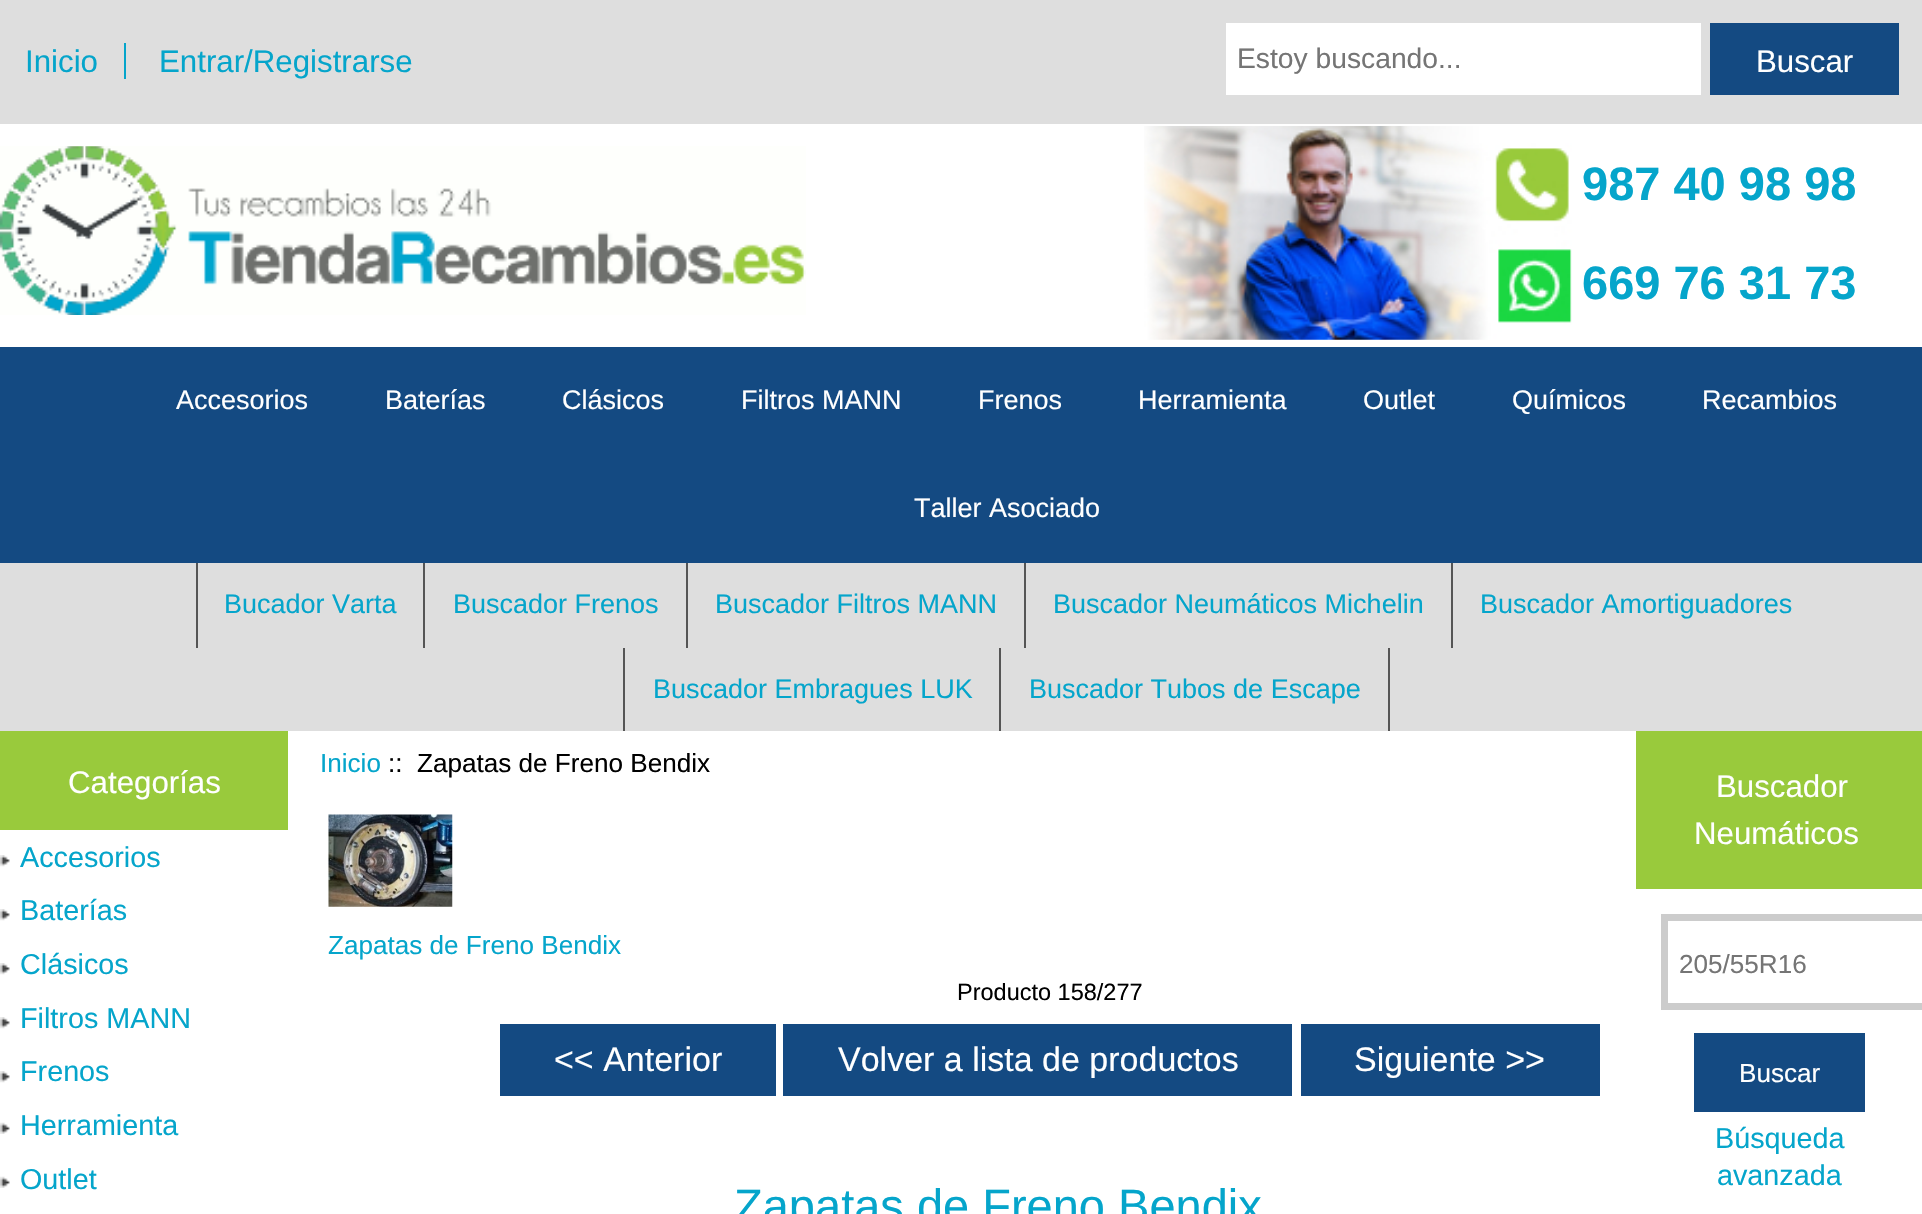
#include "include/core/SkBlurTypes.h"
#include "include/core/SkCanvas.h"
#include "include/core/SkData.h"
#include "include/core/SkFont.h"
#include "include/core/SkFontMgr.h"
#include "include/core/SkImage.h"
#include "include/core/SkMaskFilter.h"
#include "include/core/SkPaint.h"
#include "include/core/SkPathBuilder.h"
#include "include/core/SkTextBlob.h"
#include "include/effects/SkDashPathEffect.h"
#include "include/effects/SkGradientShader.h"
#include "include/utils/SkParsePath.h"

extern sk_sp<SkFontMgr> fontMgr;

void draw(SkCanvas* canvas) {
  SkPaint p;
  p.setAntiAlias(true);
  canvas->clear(SK_ColorWHITE);
  p.setColor(SkColorSetRGB(222, 222, 222));
  canvas->drawRect(SkRect::MakeLTRB(0, 0, 1922, 124), p);
  p.setColor(SkColorSetRGB(5, 165, 203));
  canvas->drawRect(SkRect::MakeLTRB(124, 43, 126, 79), p);
  p.setColor(SK_ColorWHITE);
  canvas->drawRect(SkRect::MakeLTRB(1226, 23, 1701, 95), p);
  p.setColor(SkColorSetRGB(20, 74, 130));
  canvas->drawRect(SkRect::MakeLTRB(1710, 23, 1899, 95), p);
  canvas->drawImageRect(SkImages::DeferredFromEncodedData(SkData::MakeFromFileName("images/1.png")), SkRect::MakeLTRB(0, 146, 806, 315), SkSamplingOptions());
  canvas->drawImageRect(SkImages::DeferredFromEncodedData(SkData::MakeFromFileName("images/2.png")), SkRect::MakeLTRB(1144, 126, 1572, 340), SkSamplingOptions());
  canvas->drawRect(SkRect::MakeLTRB(0, 347, 1922, 563), p);
  p.setColor(SkColorSetRGB(222, 222, 222));
  canvas->drawRect(SkRect::MakeLTRB(0, 563, 1922, 731), p);
  p.setColor(SkColorSetRGB(85, 85, 85));
  canvas->drawRect(SkRect::MakeLTRB(196, 563, 198, 648), p);
  canvas->drawRect(SkRect::MakeLTRB(423, 563, 425, 648), p);
  canvas->drawRect(SkRect::MakeLTRB(686, 563, 688, 648), p);
  canvas->drawRect(SkRect::MakeLTRB(1024, 563, 1026, 648), p);
  canvas->drawRect(SkRect::MakeLTRB(1451, 563, 1453, 648), p);
  canvas->drawRect(SkRect::MakeLTRB(623, 648, 625, 731), p);
  canvas->drawRect(SkRect::MakeLTRB(1388, 648, 1390, 731), p);
  canvas->drawRect(SkRect::MakeLTRB(999, 648, 1001, 731), p);
  p.setColor(SkColorSetRGB(153, 202, 60));
  canvas->drawRect(SkRect::MakeLTRB(0, 731, 288, 830), p);
  canvas->drawImageRect(SkImages::DeferredFromEncodedData(SkData::MakeFromFileName("images/3.png")), SkRect::MakeLTRB(0, 855, 10, 867), SkSamplingOptions());
  canvas->drawImageRect(SkImages::DeferredFromEncodedData(SkData::MakeFromFileName("images/3.png")), SkRect::MakeLTRB(0, 909, 10, 921), SkSamplingOptions());
  canvas->drawImageRect(SkImages::DeferredFromEncodedData(SkData::MakeFromFileName("images/3.png")), SkRect::MakeLTRB(0, 963, 10, 975), SkSamplingOptions());
  canvas->drawImageRect(SkImages::DeferredFromEncodedData(SkData::MakeFromFileName("images/3.png")), SkRect::MakeLTRB(0, 1017, 10, 1029), SkSamplingOptions());
  canvas->drawImageRect(SkImages::DeferredFromEncodedData(SkData::MakeFromFileName("images/3.png")), SkRect::MakeLTRB(0, 1071, 10, 1083), SkSamplingOptions());
  canvas->drawImageRect(SkImages::DeferredFromEncodedData(SkData::MakeFromFileName("images/4.png")), SkRect::MakeLTRB(0, 1122, 10, 1134), SkSamplingOptions());
  canvas->drawImageRect(SkImages::DeferredFromEncodedData(SkData::MakeFromFileName("images/4.png")), SkRect::MakeLTRB(0, 1176, 10, 1188), SkSamplingOptions());
  canvas->drawImageRect(SkImages::DeferredFromEncodedData(SkData::MakeFromFileName("images/5.png")), SkRect::MakeLTRB(328, 814, 453, 907), SkSamplingOptions());
  p.setColor(SkColorSetRGB(20, 74, 130));
  canvas->drawRect(SkRect::MakeLTRB(500, 1024, 776, 1096), p);
  canvas->drawRect(SkRect::MakeLTRB(783, 1024, 1292, 1096), p);
  canvas->drawRect(SkRect::MakeLTRB(1301, 1024, 1600, 1096), p);
  p.setColor(SkColorSetRGB(153, 202, 60));
  canvas->drawRect(SkRect::MakeLTRB(1636, 731, 1922, 889), p);
  p.setStyle(SkPaint::kStroke_Style);
  p.setStrokeWidth(7);
  p.setColor(SkColorSetRGB(204, 204, 204));
  canvas->drawRect(SkRect::MakeLTRB(1664.5f, 917.5f, 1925.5f, 1006.5f), p);
  p.setStyle(SkPaint::kFill_Style);
  p.setColor(SkColorSetRGB(20, 74, 130));
  canvas->drawRect(SkRect::MakeLTRB(1694, 1033, 1865, 1112), p);
  SkFont font1(fontMgr->matchFamilyStyle("Liberation Sans", SkFontStyle::Normal()), 31.25f);
  font1.setSubpixel(true);
  p.setColor(SkColorSetRGB(5, 165, 203));
  canvas->drawString("Inicio", 25, 72, font1, p);
  canvas->drawString("Entrar/Registrarse", 159, 72, font1, p);
  SkFont font2(fontMgr->matchFamilyStyle("Liberation Sans", SkFontStyle::Normal()), 28.25f);
  font2.setSubpixel(true);
  p.setColor(SkColorSetRGB(117, 117, 117));
  canvas->drawString("Estoy buscando...", 1237, 68, font2, p);
  p.setColor(SK_ColorWHITE);
  canvas->drawString("Buscar", 1756, 72, font1, p);
  SkFont font3(fontMgr->matchFamilyStyle("Liberation Sans", SkFontStyle::Bold()), 47);
  font3.setSubpixel(true);
  p.setColor(SkColorSetRGB(5, 165, 203));
  canvas->drawString("987 40 98 98", 1582, 200, font3, p);
  canvas->drawString("669 76 31 73", 1582, 299, font3, p);
  SkFont font4(fontMgr->matchFamilyStyle("Liberation Sans", SkFontStyle::Normal()), 27);
  font4.setSubpixel(true);
  p.setColor(SK_ColorWHITE);
  canvas->drawString("Accesorios", 176, 409, font4, p);
  canvas->drawString("Baterías", 385, 409, font4, p);
  canvas->drawString("Clásicos", 562, 409, font4, p);
  canvas->drawString("Filtros MANN", 741, 409, font4, p);
  canvas->drawString("Frenos", 978, 409, font4, p);
  canvas->drawString("Herramienta", 1138, 409, font4, p);
  canvas->drawString("Outlet", 1363, 409, font4, p);
  canvas->drawString("Químicos", 1512, 409, font4, p);
  canvas->drawString("Recambios", 1702, 409, font4, p);
  canvas->drawString("Taller Asociado", 914, 517, font4, p);
  p.setColor(SkColorSetRGB(5, 165, 203));
  canvas->drawString("Bucador Varta", 224, 613, font4, p);
  canvas->drawString("Buscador Frenos", 453, 613, font4, p);
  canvas->drawString("Buscador Filtros MANN", 715, 613, font4, p);
  canvas->drawString("Buscador Neumáticos Michelin", 1053, 613, font4, p);
  canvas->drawString("Buscador Amortiguadores", 1480, 613, font4, p);
  canvas->drawString("Buscador Embragues LUK", 653, 698, font4, p);
  canvas->drawString("Buscador Tubos de Escape", 1029, 698, font4, p);
  p.setColor(SK_ColorWHITE);
  canvas->drawString("Categorías", 68, 793, font1, p);
  SkFont font5(fontMgr->matchFamilyStyle("Liberation Sans", SkFontStyle::Normal()), 28.75f);
  font5.setSubpixel(true);
  p.setColor(SkColorSetRGB(5, 165, 203));
  canvas->drawString("Accesorios", 20, 867, font5, p);
  canvas->drawString("Baterías", 20, 920, font5, p);
  canvas->drawString("Clásicos", 20, 974, font5, p);
  canvas->drawString("Filtros MANN", 20, 1028, font5, p);
  canvas->drawString("Frenos", 20, 1081, font5, p);
  canvas->drawString("Herramienta", 20, 1135, font5, p);
  canvas->drawString("Outlet", 20, 1189, font5, p);
  SkFont font6(fontMgr->matchFamilyStyle("Liberation Sans", SkFontStyle::Normal()), 26.1f);
  font6.setSubpixel(true);
  canvas->drawString("Inicio", 320, 772, font6, p);
  p.setColor(SK_ColorBLACK);
  canvas->drawString("::  Zapatas de Freno Bendix", 388, 772, font6, p);
  p.setColor(SkColorSetRGB(5, 165, 203));
  canvas->drawString("Zapatas de Freno Bendix", 328, 954, font6, p);
  SkFont font7(fontMgr->matchFamilyStyle("Liberation Sans", SkFontStyle::Normal()), 23.5f);
  font7.setSubpixel(true);
  p.setColor(SK_ColorBLACK);
  canvas->drawString("Producto 158/277", 957, 1000, font7, p);
  SkFont font8(fontMgr->matchFamilyStyle("Liberation Sans", SkFontStyle::Normal()), 34);
  font8.setSubpixel(true);
  p.setColor(SK_ColorWHITE);
  canvas->drawString("<< Anterior", 554, 1071, font8, p);
  canvas->drawString("Volver a lista de productos", 838, 1071, font8, p);
  canvas->drawString("Siguiente >>", 1354, 1071, font8, p);
  SkFont font9(fontMgr->matchFamilyStyle("Liberation Sans", SkFontStyle::Normal()), 47);
  font9.setSubpixel(true);
  p.setColor(SkColorSetRGB(5, 165, 203));
  canvas->drawString("Zapatas de Freno Bendix", 734, 1222, font9, p);
  p.setColor(SK_ColorWHITE);
  canvas->drawString("Buscador", 1716, 797, font1, p);
  canvas->drawString("Neumáticos", 1694, 844, font1, p);
  p.setColor(SkColorSetRGB(117, 117, 117));
  canvas->drawString("205/55R16", 1679, 973, font6, p);
  p.setColor(SK_ColorWHITE);
  canvas->drawString("Buscar", 1739, 1082, font6, p);
  p.setColor(SkColorSetRGB(5, 165, 203));
  canvas->drawString("Búsqueda", 1715, 1148, font5, p);
  canvas->drawString("avanzada", 1717, 1185, font5, p);
}
